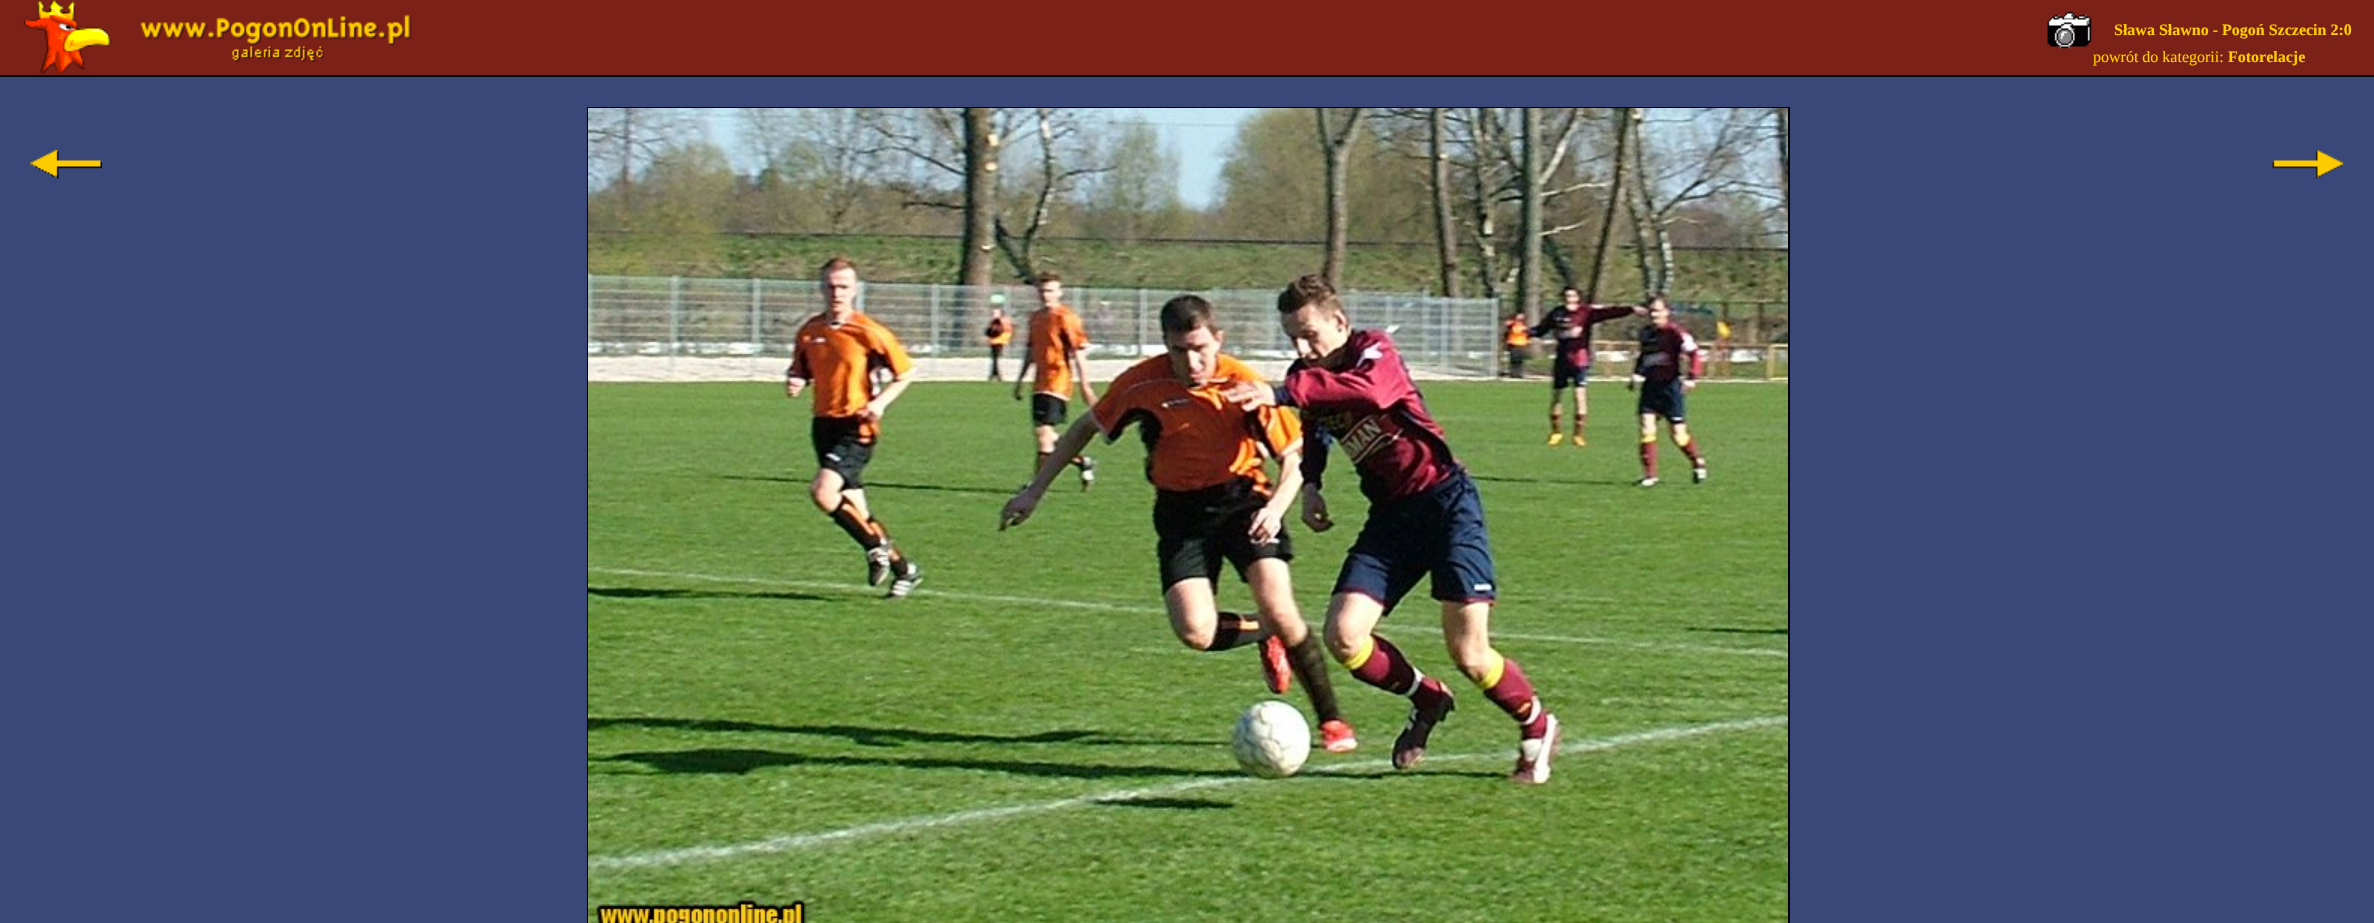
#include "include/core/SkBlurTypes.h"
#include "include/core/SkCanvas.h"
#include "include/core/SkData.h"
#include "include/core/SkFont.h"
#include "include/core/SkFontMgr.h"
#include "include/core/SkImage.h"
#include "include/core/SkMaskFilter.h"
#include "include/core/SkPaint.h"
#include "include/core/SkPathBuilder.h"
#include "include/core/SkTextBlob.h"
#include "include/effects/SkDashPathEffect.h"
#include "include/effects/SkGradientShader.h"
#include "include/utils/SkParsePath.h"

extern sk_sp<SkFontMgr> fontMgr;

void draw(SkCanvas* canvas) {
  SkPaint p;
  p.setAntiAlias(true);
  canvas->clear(SkColorSetRGB(58, 72, 121));
  p.setColor(SkColorSetRGB(123, 33, 24));
  canvas->drawRect(SkRect::MakeLTRB(0, 0, 2374, 75), p);
  canvas->drawImageRect(SkImages::DeferredFromEncodedData(SkData::MakeFromFileName("images/1.png")), SkRect::MakeLTRB(23, 0, 412, 74), SkSamplingOptions());
  canvas->drawImageRect(SkImages::DeferredFromEncodedData(SkData::MakeFromFileName("images/2.png")), SkRect::MakeLTRB(2047, 11, 2092, 49), SkSamplingOptions());
  p.setColor(SK_ColorBLACK);
  canvas->drawRect(SkRect::MakeLTRB(0, 75, 2374, 77), p);
  canvas->drawImageRect(SkImages::DeferredFromEncodedData(SkData::MakeFromFileName("images/3.png")), SkRect::MakeLTRB(30, 150, 102, 179), SkSamplingOptions());
  p.setStyle(SkPaint::kStroke_Style);
  p.setStrokeWidth(2);
  canvas->drawRect(SkRect::MakeLTRB(588, 108, 1789, 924), p);
  canvas->drawImageRect(SkImages::DeferredFromEncodedData(SkData::MakeFromFileName("images/4.png")), SkRect::MakeLTRB(588, 108, 1788, 923), SkSamplingOptions());
  canvas->drawImageRect(SkImages::DeferredFromEncodedData(SkData::MakeFromFileName("images/5.png")), SkRect::MakeLTRB(2272, 150, 2344, 179), SkSamplingOptions());
  SkFont font1(fontMgr->matchFamilyStyle("Liberation Serif", SkFontStyle::Bold()), 16);
  font1.setSubpixel(true);
  p.setStyle(SkPaint::kFill_Style);
  p.setColor(SkColorSetRGB(255, 204, 0));
  canvas->drawString("Sława Sławno - Pogoń Szczecin 2:0", 2114, 35, font1, p);
  SkFont font2(fontMgr->matchFamilyStyle("Liberation Serif", SkFontStyle::Normal()), 16);
  font2.setSubpixel(true);
  canvas->drawString("powrót do kategorii:", 2093, 62, font2, p);
  canvas->drawString("Fotorelacje", 2228, 62, font1, p);
}
